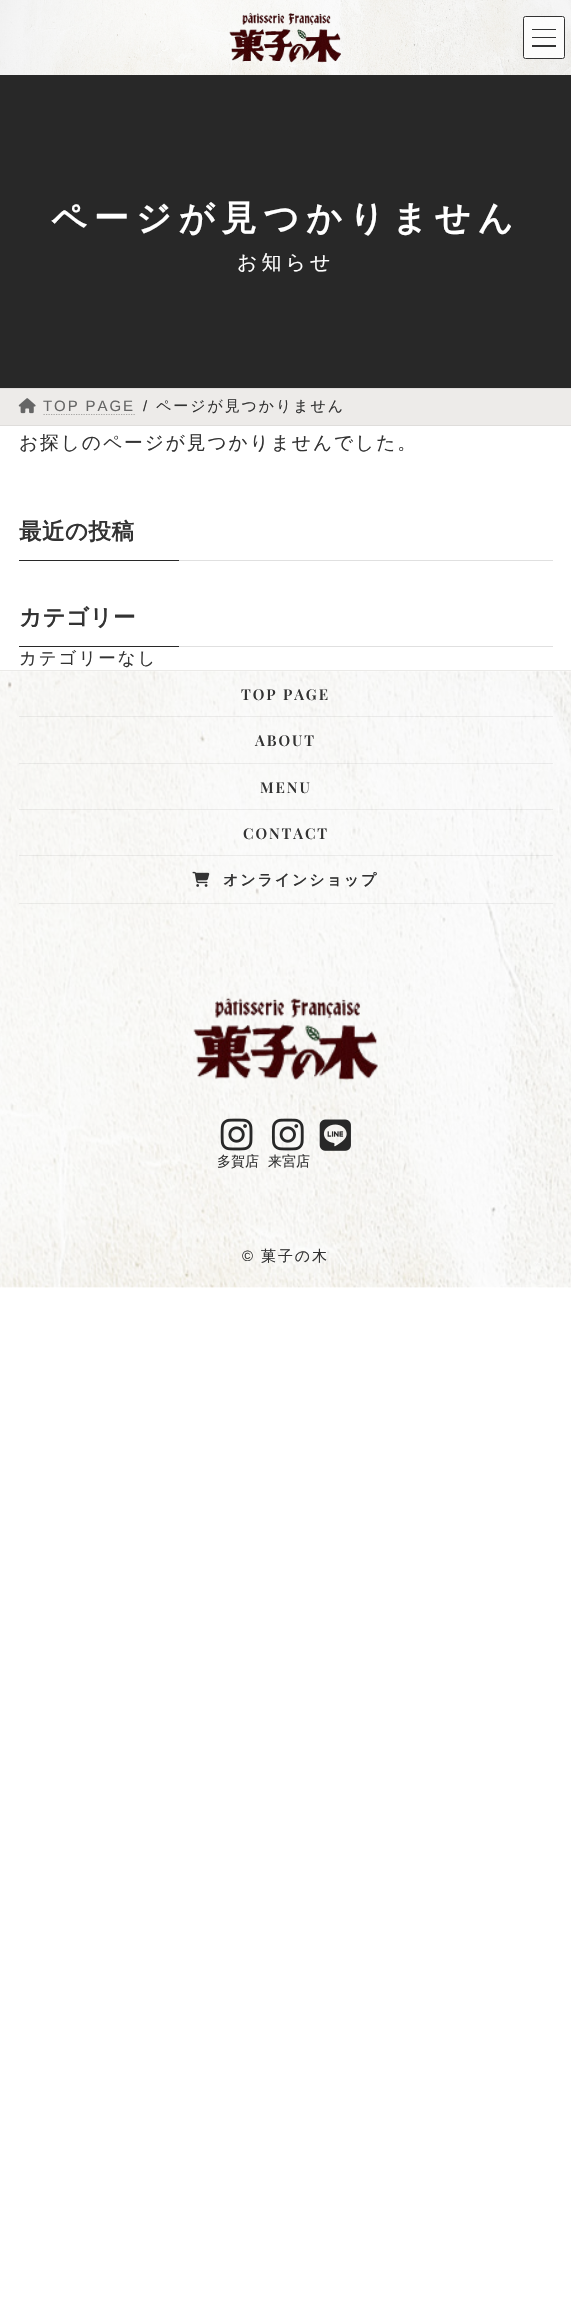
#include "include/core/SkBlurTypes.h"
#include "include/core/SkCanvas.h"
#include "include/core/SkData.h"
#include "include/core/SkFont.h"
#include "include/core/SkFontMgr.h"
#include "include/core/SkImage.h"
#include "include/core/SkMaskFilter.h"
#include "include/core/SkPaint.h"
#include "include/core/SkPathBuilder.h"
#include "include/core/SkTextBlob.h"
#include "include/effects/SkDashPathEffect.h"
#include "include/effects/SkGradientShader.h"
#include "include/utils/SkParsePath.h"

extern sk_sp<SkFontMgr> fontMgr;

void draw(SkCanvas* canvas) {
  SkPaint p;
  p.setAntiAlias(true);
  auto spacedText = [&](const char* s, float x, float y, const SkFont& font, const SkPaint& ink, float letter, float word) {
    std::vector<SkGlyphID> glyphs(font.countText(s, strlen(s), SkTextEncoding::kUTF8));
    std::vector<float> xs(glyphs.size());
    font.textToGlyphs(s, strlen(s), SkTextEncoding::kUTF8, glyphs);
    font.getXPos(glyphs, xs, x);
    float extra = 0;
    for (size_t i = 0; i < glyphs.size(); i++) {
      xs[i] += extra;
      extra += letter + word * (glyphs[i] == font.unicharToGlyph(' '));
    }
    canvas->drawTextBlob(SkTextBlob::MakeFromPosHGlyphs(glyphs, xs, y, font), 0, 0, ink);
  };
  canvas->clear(SK_ColorWHITE);
  canvas->drawImageRect(SkImages::DeferredFromEncodedData(SkData::MakeFromFileName("images/1.png")), SkRect::MakeLTRB(0, 0, 571, 75), SkSamplingOptions());
  canvas->drawImageRect(SkImages::DeferredFromEncodedData(SkData::MakeFromFileName("images/2.png")), SkRect::MakeLTRB(229, 12, 341, 63), SkSamplingOptions());
  p.setColor(SkColorSetARGB(204, 255, 255, 255));
  canvas->drawRoundRect(SkRect::MakeLTRB(523, 16, 565, 59), 2.5f, 2.5f, p);
  p.setColor(SkColorSetRGB(50, 50, 50));
  canvas->drawRect(SkRect::MakeLTRB(532, 29, 556, 30), p);
  canvas->drawRect(SkRect::MakeLTRB(532, 37, 556, 38), p);
  canvas->drawRect(SkRect::MakeLTRB(532, 45, 556, 47), p);
  p.setStyle(SkPaint::kStroke_Style);
  p.setStrokeWidth(1);
  p.setColor(SkColorSetRGB(51, 51, 51));
  canvas->drawRoundRect(SkRect::MakeLTRB(523.5f, 16.5f, 564.5f, 58.5f), 2, 2, p);
  p.setStyle(SkPaint::kFill_Style);
  p.setColor(SkColorSetRGB(40, 40, 40));
  canvas->drawRect(SkRect::MakeLTRB(0, 75, 571, 388), p);
  p.setColor(SkColorSetRGB(237, 235, 233));
  canvas->drawRect(SkRect::MakeLTRB(0, 389, 571, 425), p);
  p.setColor(SkColorSetRGB(223, 221, 219));
  canvas->drawRect(SkRect::MakeLTRB(0, 388, 571, 389), p);
  canvas->drawRect(SkRect::MakeLTRB(0, 425, 571, 426), p);
  canvas->drawImageRect(SkImages::DeferredFromEncodedData(SkData::MakeFromFileName("images/3.png")), SkRect::MakeLTRB(18, 398, 36, 414), SkSamplingOptions());
  p.setStyle(SkPaint::kStroke_Style);
  p.setStrokeWidth(1.2f);
  p.setColor(SkColorSetRGB(166, 165, 163));
  p.setPathEffect(SkDashPathEffect::Make({{1.25f, 1.25f}}, 0));
  canvas->drawPath(SkPathBuilder().moveTo(43.5f, 414.5f).lineTo(135, 414.5f).detach(), p);
  p.setPathEffect(nullptr);
  p.setStyle(SkPaint::kFill_Style);
  p.setColor(SkColorSetRGB(224, 224, 224));
  canvas->drawRect(SkRect::MakeLTRB(179, 560, 553, 561), p);
  p.setColor(SkColorSetRGB(40, 40, 40));
  canvas->drawRect(SkRect::MakeLTRB(19, 560, 179, 561), p);
  p.setColor(SkColorSetRGB(224, 224, 224));
  canvas->drawRect(SkRect::MakeLTRB(179, 646, 553, 647), p);
  p.setColor(SkColorSetRGB(40, 40, 40));
  canvas->drawRect(SkRect::MakeLTRB(19, 646, 179, 647), p);
  canvas->drawImageRect(SkImages::DeferredFromEncodedData(SkData::MakeFromFileName("images/4.png")), SkRect::MakeLTRB(0, 671, 571, 1288), SkSamplingOptions());
  p.setColor(SkColorSetRGB(235, 234, 232));
  canvas->drawRect(SkRect::MakeLTRB(0, 670, 571, 671), p);
  p.setColor(SkColorSetARGB(15, 0, 0, 0));
  canvas->drawRect(SkRect::MakeLTRB(19, 716, 553, 717), p);
  canvas->drawRect(SkRect::MakeLTRB(19, 763, 553, 764), p);
  canvas->drawRect(SkRect::MakeLTRB(19, 809, 553, 810), p);
  canvas->drawRect(SkRect::MakeLTRB(19, 855, 553, 856), p);
  canvas->drawRect(SkRect::MakeLTRB(19, 903, 553, 904), p);
  canvas->drawImageRect(SkImages::DeferredFromEncodedData(SkData::MakeFromFileName("images/5.png")), SkRect::MakeLTRB(192, 871, 210, 887), SkSamplingOptions());
  canvas->drawImageRect(SkImages::DeferredFromEncodedData(SkData::MakeFromFileName("images/6.png")), SkRect::MakeLTRB(193, 997, 378, 1080), SkSamplingOptions());
  canvas->drawImageRect(SkImages::DeferredFromEncodedData(SkData::MakeFromFileName("images/7.png")), SkRect::MakeLTRB(319, 1119, 351, 1151), SkSamplingOptions());
  canvas->drawImageRect(SkImages::DeferredFromEncodedData(SkData::MakeFromFileName("images/8.png")), SkRect::MakeLTRB(220, 1118, 253, 1151), SkSamplingOptions());
  canvas->drawImageRect(SkImages::DeferredFromEncodedData(SkData::MakeFromFileName("images/9.png")), SkRect::MakeLTRB(271, 1118, 304, 1151), SkSamplingOptions());
  SkFont font1(fontMgr->matchFamilyStyle("WenQuanYi Zen Hei", SkFontStyle::Bold()), 35);
  font1.setSubpixel(true);
  p.setColor(SK_ColorWHITE);
  spacedText("ページが見つかりません", 51, 230, font1, p, 7, 0);
  SkFont font2(fontMgr->matchFamilyStyle("WenQuanYi Zen Hei", SkFontStyle(500, SkFontStyle::kNormal_Width, SkFontStyle::kUpright_Slant)), 20);
  font2.setSubpixel(true);
  spacedText("お知らせ", 237, 269, font2, p, 4, 0);
  SkFont font3(fontMgr->matchFamilyStyle("Liberation Sans", SkFontStyle::Normal()), 15);
  font3.setSubpixel(true);
  p.setColor(SkColorSetRGB(102, 102, 102));
  spacedText("TOP PAGE", 43, 411, font3, p, 1.9f, 0);
  p.setColor(SkColorSetRGB(51, 51, 51));
  spacedText("/", 143, 411, font3, p, 1.9f, 0);
  SkFont font4(fontMgr->matchFamilyStyle("WenQuanYi Zen Hei", SkFontStyle(500, SkFontStyle::kNormal_Width, SkFontStyle::kUpright_Slant)), 15);
  font4.setSubpixel(true);
  spacedText("ページが見つかりません", 156, 411, font4, p, 1.9f, 0);
  SkFont font5(fontMgr->matchFamilyStyle("WenQuanYi Zen Hei", SkFontStyle(500, SkFontStyle::kNormal_Width, SkFontStyle::kUpright_Slant)), 18.75f);
  font5.setSubpixel(true);
  spacedText("お探しのページが見つかりませんでした。", 19, 449, font5, p, 1.9f, 0);
  SkFont font6(fontMgr->matchFamilyStyle("WenQuanYi Zen Hei", SkFontStyle::Bold()), 22.5f);
  font6.setSubpixel(true);
  spacedText("最近の投稿", 19, 539, font6, p, 0.5f, 0);
  spacedText("カテゴリー", 19, 625, font6, p, 0.5f, 0);
  SkFont font7(fontMgr->matchFamilyStyle("WenQuanYi Zen Hei", SkFontStyle(500, SkFontStyle::kNormal_Width, SkFontStyle::kUpright_Slant)), 17.5f);
  font7.setSubpixel(true);
  spacedText("カテゴリーなし", 19, 664, font7, p, 1.9f, 0);
  SkFont font8(fontMgr->matchFamilyStyle("Playfair Display", SkFontStyle(600, SkFontStyle::kNormal_Width, SkFontStyle::kUpright_Slant)), 15);
  font8.setSubpixel(true);
  spacedText("TOP PAGE", 241, 700, font8, p, 1.9f, 0);
  spacedText("ABOUT", 255, 746, font8, p, 1.9f, 0);
  spacedText("MENU", 260, 793, font8, p, 1.9f, 0);
  spacedText("CONTACT", 243, 839, font8, p, 1.9f, 0);
  SkFont font9(fontMgr->matchFamilyStyle("WenQuanYi Zen Hei", SkFontStyle::Bold()), 15);
  font9.setSubpixel(true);
  spacedText("オンラインショップ", 223, 885, font9, p, 1.9f, 0);
  SkFont font10(fontMgr->matchFamilyStyle("WenQuanYi Zen Hei", SkFontStyle(500, SkFontStyle::kNormal_Width, SkFontStyle::kUpright_Slant)), 14);
  font10.setSubpixel(true);
  canvas->drawString("多賀店", 217, 1166, font10, p);
  canvas->drawString("来宮店", 268, 1166, font10, p);
  spacedText("©", 242, 1261, font3, p, 1.9f, 0);
  spacedText("菓子の木", 261, 1261, font4, p, 1.9f, 0);
}
